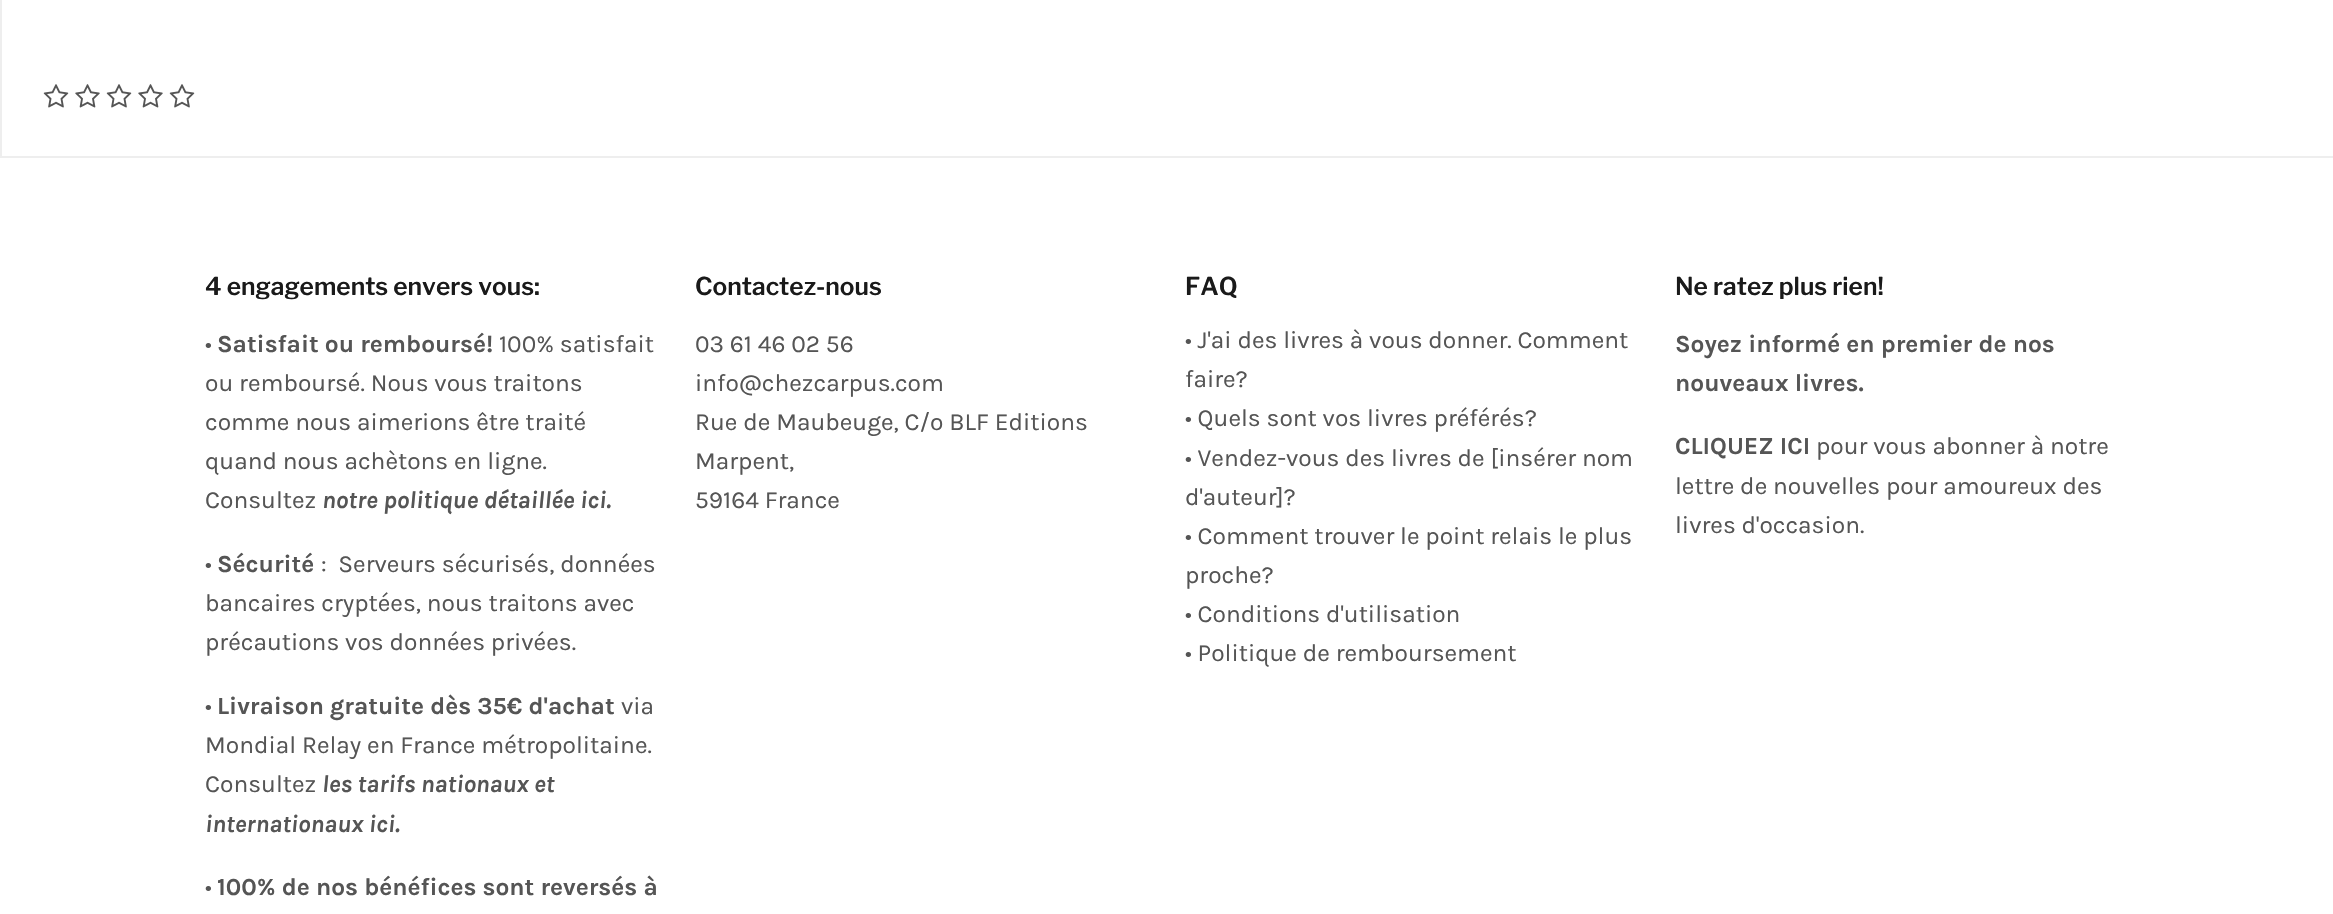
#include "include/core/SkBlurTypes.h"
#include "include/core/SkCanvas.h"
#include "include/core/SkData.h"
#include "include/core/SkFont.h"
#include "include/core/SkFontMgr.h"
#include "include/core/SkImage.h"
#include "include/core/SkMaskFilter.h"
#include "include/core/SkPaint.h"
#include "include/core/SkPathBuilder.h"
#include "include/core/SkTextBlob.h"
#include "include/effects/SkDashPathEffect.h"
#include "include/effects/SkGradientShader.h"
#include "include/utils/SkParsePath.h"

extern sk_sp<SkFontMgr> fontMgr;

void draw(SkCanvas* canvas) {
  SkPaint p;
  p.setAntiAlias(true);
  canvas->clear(SK_ColorWHITE);
  p.setStyle(SkPaint::kStroke_Style);
  p.setStrokeWidth(2);
  p.setColor(SkColorSetRGB(238, 238, 238));
  canvas->drawRect(SkRect::MakeLTRB(1, -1, 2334, 157), p);
  canvas->drawImageRect(SkImages::DeferredFromEncodedData(SkData::MakeFromFileName("images/1.png")), SkRect::MakeLTRB(43, 84, 69, 108), SkSamplingOptions());
  canvas->drawImageRect(SkImages::DeferredFromEncodedData(SkData::MakeFromFileName("images/2.png")), SkRect::MakeLTRB(75, 84, 100, 108), SkSamplingOptions());
  canvas->drawImageRect(SkImages::DeferredFromEncodedData(SkData::MakeFromFileName("images/1.png")), SkRect::MakeLTRB(106, 84, 132, 108), SkSamplingOptions());
  canvas->drawImageRect(SkImages::DeferredFromEncodedData(SkData::MakeFromFileName("images/2.png")), SkRect::MakeLTRB(138, 84, 163, 108), SkSamplingOptions());
  canvas->drawImageRect(SkImages::DeferredFromEncodedData(SkData::MakeFromFileName("images/1.png")), SkRect::MakeLTRB(169, 84, 195, 108), SkSamplingOptions());
  SkFont font1(fontMgr->matchFamilyStyle("Libre Franklin", SkFontStyle(600, SkFontStyle::kNormal_Width, SkFontStyle::kUpright_Slant)), 24.5f);
  font1.setSubpixel(true);
  p.setStyle(SkPaint::kFill_Style);
  p.setColor(SkColorSetRGB(26, 26, 26));
  canvas->drawString("4 engagements envers vous:", 205, 295, font1, p);
  SkFont font2(fontMgr->matchFamilyStyle("Karla", SkFontStyle::Normal()), 24.5f);
  font2.setSubpixel(true);
  p.setColor(SkColorSetRGB(85, 85, 85));
  canvas->drawString("•", 205, 352, font2, p);
  SkFont font3(fontMgr->matchFamilyStyle("Karla", SkFontStyle::Bold()), 24.5f);
  font3.setSubpixel(true);
  canvas->drawString("Satisfait ou remboursé!", 217, 352, font3, p);
  canvas->drawString("100% satisfait", 499, 352, font2, p);
  canvas->drawString("ou remboursé. Nous vous traitons", 205, 391, font2, p);
  canvas->drawString("comme nous aimerions être traité", 205, 430, font2, p);
  canvas->drawString("quand nous achètons en ligne.", 205, 469, font2, p);
  canvas->drawString("Consultez", 205, 508, font2, p);
  SkFont font4(fontMgr->matchFamilyStyle("Karla", SkFontStyle::BoldItalic()), 24.5f);
  font4.setSubpixel(true);
  canvas->drawString("notre politique détaillée ici.", 322, 508, font4, p);
  canvas->drawString("•", 205, 572, font2, p);
  canvas->drawString("Sécurité", 217, 572, font3, p);
  canvas->drawString(":  Serveurs sécurisés, données", 321, 572, font2, p);
  canvas->drawString("bancaires cryptées, nous traitons avec", 205, 611, font2, p);
  canvas->drawString("précautions vos données privées.", 205, 650, font2, p);
  canvas->drawString("•", 205, 714, font2, p);
  canvas->drawString("Livraison gratuite dès 35€ d'achat", 217, 714, font3, p);
  canvas->drawString("via", 621, 714, font2, p);
  canvas->drawString("Mondial Relay en France métropolitaine.", 205, 753, font2, p);
  canvas->drawString("Consultez", 205, 792, font2, p);
  canvas->drawString("les tarifs nationaux et", 322, 792, font4, p);
  canvas->drawString("internationaux ici.", 205, 832, font4, p);
  canvas->drawString("•", 205, 895, font2, p);
  canvas->drawString("100% de nos bénéfices sont reversés à", 217, 895, font3, p);
  p.setColor(SkColorSetRGB(26, 26, 26));
  canvas->drawString("Contactez-nous", 695, 295, font1, p);
  p.setColor(SkColorSetRGB(85, 85, 85));
  canvas->drawString("03 61 46 02 56", 695, 352, font2, p);
  canvas->drawString("info@chezcarpus.com", 695, 391, font2, p);
  canvas->drawString("Rue de Maubeuge, C/o BLF Editions", 695, 430, font2, p);
  canvas->drawString("Marpent,", 695, 469, font2, p);
  canvas->drawString("59164 France", 695, 508, font2, p);
  p.setColor(SkColorSetRGB(26, 26, 26));
  canvas->drawString("FAQ", 1185, 295, font1, p);
  p.setColor(SkColorSetRGB(85, 85, 85));
  canvas->drawString("• J'ai des livres à vous donner. Comment", 1185, 348, font2, p);
  canvas->drawString("faire?", 1185, 387, font2, p);
  canvas->drawString("• Quels sont vos livres préférés?", 1185, 426, font2, p);
  canvas->drawString("• Vendez-vous des livres de [insérer nom", 1185, 466, font2, p);
  canvas->drawString("d'auteur]?", 1185, 505, font2, p);
  canvas->drawString("• Comment trouver le point relais le plus", 1185, 544, font2, p);
  canvas->drawString("proche?", 1185, 583, font2, p);
  canvas->drawString("• Conditions d'utilisation", 1185, 622, font2, p);
  canvas->drawString("• Politique de remboursement", 1185, 661, font2, p);
  p.setColor(SkColorSetRGB(26, 26, 26));
  canvas->drawString("Ne ratez plus rien!", 1675, 295, font1, p);
  p.setColor(SkColorSetRGB(85, 85, 85));
  canvas->drawString("Soyez informé en premier de nos", 1675, 352, font3, p);
  canvas->drawString("nouveaux livres.", 1675, 391, font3, p);
  canvas->drawString("CLIQUEZ ICI", 1675, 454, font3, p);
  canvas->drawString("pour vous abonner à notre", 1816, 454, font2, p);
  canvas->drawString("lettre de nouvelles pour amoureux des", 1675, 494, font2, p);
  canvas->drawString("livres d'occasion.", 1675, 533, font2, p);
}
